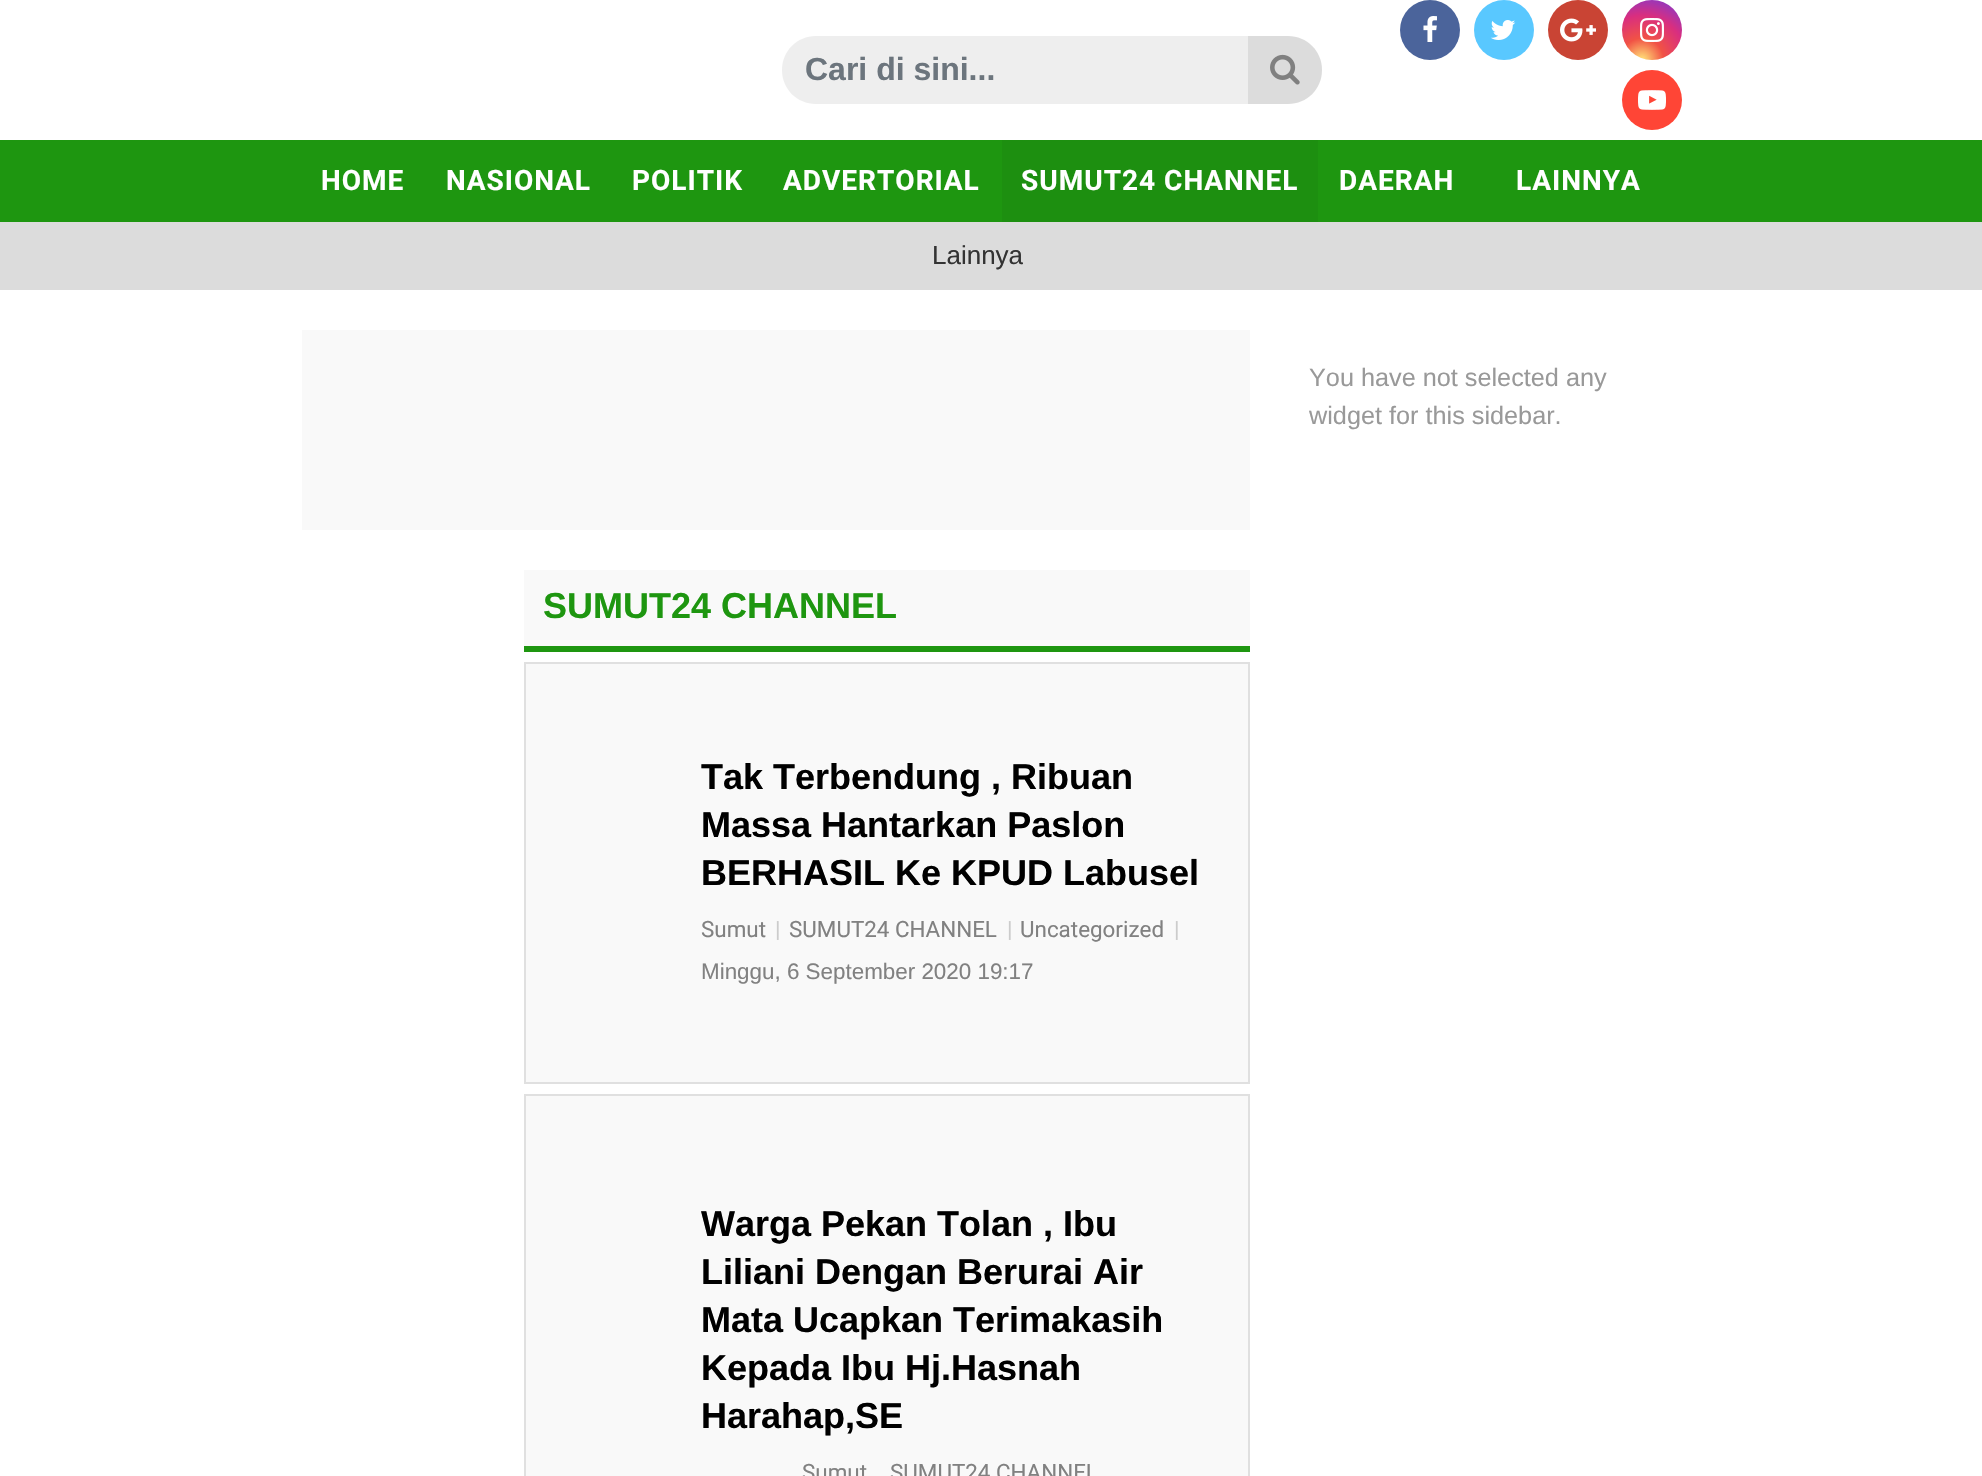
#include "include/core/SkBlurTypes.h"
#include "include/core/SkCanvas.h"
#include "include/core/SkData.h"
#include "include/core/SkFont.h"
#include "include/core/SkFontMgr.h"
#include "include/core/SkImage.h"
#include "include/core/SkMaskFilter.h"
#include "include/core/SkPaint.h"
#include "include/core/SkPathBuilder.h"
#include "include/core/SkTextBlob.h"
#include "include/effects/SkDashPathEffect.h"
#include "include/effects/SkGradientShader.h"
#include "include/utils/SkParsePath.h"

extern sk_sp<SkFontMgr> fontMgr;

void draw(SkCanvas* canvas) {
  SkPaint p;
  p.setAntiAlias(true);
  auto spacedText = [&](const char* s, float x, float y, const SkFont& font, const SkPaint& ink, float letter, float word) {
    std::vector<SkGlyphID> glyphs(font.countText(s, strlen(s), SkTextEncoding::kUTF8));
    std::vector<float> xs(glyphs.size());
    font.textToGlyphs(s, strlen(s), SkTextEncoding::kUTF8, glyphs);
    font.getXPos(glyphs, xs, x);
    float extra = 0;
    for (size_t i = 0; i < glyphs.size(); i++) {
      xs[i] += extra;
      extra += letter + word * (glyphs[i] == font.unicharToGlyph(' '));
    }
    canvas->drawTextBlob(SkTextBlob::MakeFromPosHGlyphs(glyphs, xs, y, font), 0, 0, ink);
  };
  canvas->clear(SK_ColorWHITE);
  p.setColor(SkColorSetRGB(238, 238, 238));
  canvas->drawPath(SkPathBuilder().moveTo(816, 36).lineTo(1248, 36).lineTo(1248, 104).lineTo(816, 104).cubicTo(797, 104, 782, 89, 782, 70).cubicTo(782, 51, 797, 36, 816, 36).close().detach(), p);
  p.setColor(SkColorSetRGB(220, 220, 220));
  canvas->drawPath(SkPathBuilder().moveTo(1248, 36).lineTo(1288, 36).cubicTo(1307, 36, 1322, 51, 1322, 70).cubicTo(1322, 89, 1307, 104, 1288, 104).lineTo(1248, 104).close().detach(), p);
  canvas->drawImageRect(SkImages::DeferredFromEncodedData(SkData::MakeFromFileName("images/1.png")), SkRect::MakeLTRB(1270, 54, 1300, 85), SkSamplingOptions());
  p.setColor(SkColorSetRGB(75, 100, 155));
  canvas->drawCircle(1430, 30, 30, p);
  canvas->drawImageRect(SkImages::DeferredFromEncodedData(SkData::MakeFromFileName("images/2.png")), SkRect::MakeLTRB(1423, 16, 1437, 42), SkSamplingOptions());
  p.setColor(SkColorSetRGB(89, 200, 255));
  canvas->drawCircle(1504, 30, 30, p);
  canvas->drawImageRect(SkImages::DeferredFromEncodedData(SkData::MakeFromFileName("images/3.png")), SkRect::MakeLTRB(1490, 20, 1516, 40), SkSamplingOptions());
  p.setColor(SkColorSetRGB(201, 68, 52));
  canvas->drawCircle(1578, 30, 30, p);
  canvas->drawImageRect(SkImages::DeferredFromEncodedData(SkData::MakeFromFileName("images/4.png")), SkRect::MakeLTRB(1560, 18, 1596, 42), SkSamplingOptions());
  {
    const SkColor colors[] = {SkColorSetRGB(254, 211, 115), SkColorSetRGB(241, 82, 69), SkColorSetRGB(217, 46, 127), SkColorSetRGB(155, 54, 183), SkColorSetRGB(81, 94, 207)};
    const float stops[] = {0.04f, 0.3f, 0.62f, 0.85f, 1};
    p.setShader(SkGradientShader::MakeRadial({1642, 60}, 72, colors, stops, 5, SkTileMode::kClamp));
    p.setAlpha(255);
  }
  canvas->drawCircle(1652, 30, 30, p);
  canvas->drawImageRect(SkImages::DeferredFromEncodedData(SkData::MakeFromFileName("images/5.png")), SkRect::MakeLTRB(1640, 18, 1664, 42), SkSamplingOptions());
  p.setShader(nullptr);
  p.setColor(SkColorSetRGB(255, 69, 54));
  canvas->drawCircle(1652, 100, 30, p);
  canvas->drawImageRect(SkImages::DeferredFromEncodedData(SkData::MakeFromFileName("images/6.png")), SkRect::MakeLTRB(1638, 90, 1666, 110), SkSamplingOptions());
  p.setColor(SkColorSetRGB(30, 150, 16));
  canvas->drawRect(SkRect::MakeLTRB(0, 140, 1982, 222), p);
  p.setColor(SkColorSetRGB(29, 143, 16));
  canvas->drawRect(SkRect::MakeLTRB(1002, 140, 1318, 222), p);
  p.setColor(SkColorSetRGB(220, 220, 220));
  canvas->drawRect(SkRect::MakeLTRB(0, 222, 1982, 290), p);
  p.setColor(SkColorSetRGB(249, 249, 249));
  canvas->drawRect(SkRect::MakeLTRB(302, 330, 1250, 530), p);
  canvas->drawRect(SkRect::MakeLTRB(524, 570, 1250, 646), p);
  p.setColor(SkColorSetRGB(30, 150, 16));
  canvas->drawRect(SkRect::MakeLTRB(524, 646, 1250, 652), p);
  p.setColor(SkColorSetRGB(249, 249, 249));
  canvas->drawRect(SkRect::MakeLTRB(525, 663, 1249, 1083), p);
  p.setStyle(SkPaint::kStroke_Style);
  p.setStrokeWidth(2);
  p.setColor(SkColorSetRGB(224, 224, 224));
  canvas->drawRect(SkRect::MakeLTRB(525, 663, 1249, 1083), p);
  p.setStyle(SkPaint::kFill_Style);
  p.setColor(SkColorSetRGB(249, 249, 249));
  canvas->drawRect(SkRect::MakeLTRB(525, 1095, 1249, 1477), p);
  p.setStyle(SkPaint::kStroke_Style);
  p.setColor(SkColorSetRGB(224, 224, 224));
  canvas->drawRect(SkRect::MakeLTRB(525, 1095, 1249, 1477), p);
  SkFont font1(fontMgr->matchFamilyStyle("Liberation Sans", SkFontStyle::Bold()), 32);
  font1.setSubpixel(true);
  p.setStyle(SkPaint::kFill_Style);
  p.setColor(SkColorSetRGB(108, 117, 125));
  canvas->drawString("Cari di sini...", 805, 80, font1, p);
  SkFont font2(fontMgr->matchFamilyStyle("Roboto", SkFontStyle::Bold()), 28);
  font2.setSubpixel(true);
  p.setColor(SK_ColorWHITE);
  spacedText("HOME", 321, 190, font2, p, 1, 0);
  spacedText("NASIONAL", 446, 190, font2, p, 1, 0);
  spacedText("POLITIK", 632, 190, font2, p, 1, 0);
  spacedText("ADVERTORIAL", 783, 190, font2, p, 1, 0);
  spacedText("SUMUT24 CHANNEL", 1021, 190, font2, p, 1, 0);
  spacedText("DAERAH", 1339, 190, font2, p, 1, 0);
  spacedText("LAINNYA", 1516, 190, font2, p, 1, 0);
  SkFont font3(fontMgr->matchFamilyStyle("Liberation Sans", SkFontStyle::Normal()), 26);
  font3.setSubpixel(true);
  p.setColor(SkColorSetRGB(51, 51, 51));
  canvas->drawString("Lainnya", 932, 264, font3, p);
  SkFont font4(fontMgr->matchFamilyStyle("Liberation Sans", SkFontStyle::Normal()), 25.25f);
  font4.setSubpixel(true);
  p.setColor(SkColorSetRGB(153, 153, 153));
  canvas->drawString("You have not selected any", 1309, 386, font4, p);
  canvas->drawString("widget for this sidebar.", 1309, 424, font4, p);
  SkFont font5(fontMgr->matchFamilyStyle("Liberation Sans", SkFontStyle::Bold()), 36);
  font5.setSubpixel(true);
  p.setColor(SkColorSetRGB(30, 150, 16));
  canvas->drawString("SUMUT24 CHANNEL", 543, 618, font5, p);
  p.setColor(SK_ColorBLACK);
  canvas->drawString("Tak Terbendung , Ribuan", 701, 789, font5, p);
  canvas->drawString("Massa Hantarkan Paslon", 701, 837, font5, p);
  canvas->drawString("BERHASIL Ke KPUD Labusel", 701, 885, font5, p);
  SkFont font6(fontMgr->matchFamilyStyle("Roboto", SkFontStyle::Normal()), 22.4f);
  font6.setSubpixel(true);
  p.setColor(SkColorSetRGB(129, 129, 129));
  canvas->drawString("Sumut", 701, 937, font6, p);
  p.setColor(SkColorSetRGB(204, 204, 204));
  canvas->drawString("|", 775, 937, font6, p);
  p.setColor(SkColorSetRGB(129, 129, 129));
  canvas->drawString("SUMUT24 CHANNEL", 789, 937, font6, p);
  p.setColor(SkColorSetRGB(204, 204, 204));
  canvas->drawString("|", 1007, 937, font6, p);
  p.setColor(SkColorSetRGB(129, 129, 129));
  canvas->drawString("Uncategorized", 1020, 937, font6, p);
  p.setColor(SkColorSetRGB(204, 204, 204));
  canvas->drawString("|", 1174, 937, font6, p);
  SkFont font7(fontMgr->matchFamilyStyle("Liberation Sans", SkFontStyle::Normal()), 22.4f);
  font7.setSubpixel(true);
  p.setColor(SkColorSetRGB(129, 129, 129));
  canvas->drawString("Minggu, 6 September 2020 19:17", 701, 979, font7, p);
  p.setColor(SK_ColorBLACK);
  canvas->drawString("Warga Pekan Tolan , Ibu", 701, 1236, font5, p);
  canvas->drawString("Liliani Dengan Berurai Air", 701, 1284, font5, p);
  canvas->drawString("Mata Ucapkan Terimakasih", 701, 1332, font5, p);
  canvas->drawString("Kepada Ibu Hj.Hasnah", 701, 1380, font5, p);
  canvas->drawString("Harahap,SE", 701, 1428, font5, p);
  p.setColor(SkColorSetRGB(129, 129, 129));
  canvas->drawString("Sumut", 802, 1480, font6, p);
  canvas->drawString("SUMUT24 CHANNEL", 890, 1480, font6, p);
}
